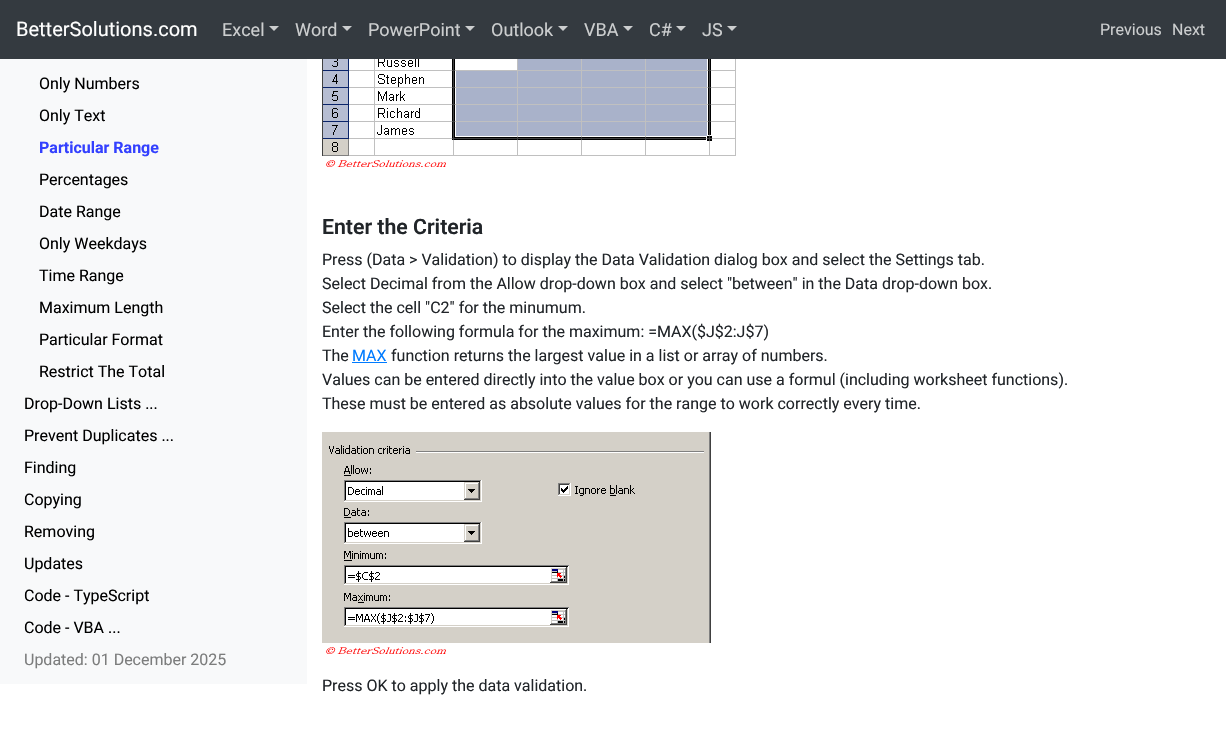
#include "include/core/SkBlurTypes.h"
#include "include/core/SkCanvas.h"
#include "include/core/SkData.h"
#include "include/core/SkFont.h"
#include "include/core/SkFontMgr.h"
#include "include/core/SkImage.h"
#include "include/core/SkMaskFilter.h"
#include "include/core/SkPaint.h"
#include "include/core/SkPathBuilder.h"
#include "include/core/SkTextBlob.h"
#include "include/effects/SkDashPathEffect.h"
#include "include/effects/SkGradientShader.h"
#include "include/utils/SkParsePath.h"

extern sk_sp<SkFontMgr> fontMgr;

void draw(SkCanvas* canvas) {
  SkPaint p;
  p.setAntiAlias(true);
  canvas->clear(SK_ColorWHITE);
  p.setColor(SkColorSetRGB(52, 58, 64));
  canvas->drawRect(SkRect::MakeLTRB(0, 0, 1226, 59), p);
  p.setColor(SkColorSetRGB(204, 206, 207));
  canvas->drawPath(SkPathBuilder().moveTo(269, 26).lineTo(279, 26).lineTo(274, 31).close().detach(), p);
  canvas->drawPath(SkPathBuilder().moveTo(342, 26).lineTo(352, 26).lineTo(347, 31).close().detach(), p);
  canvas->drawPath(SkPathBuilder().moveTo(465, 26).lineTo(475, 26).lineTo(470, 31).close().detach(), p);
  canvas->drawPath(SkPathBuilder().moveTo(558, 26).lineTo(568, 26).lineTo(563, 31).close().detach(), p);
  canvas->drawPath(SkPathBuilder().moveTo(623, 26).lineTo(633, 26).lineTo(628, 31).close().detach(), p);
  canvas->drawPath(SkPathBuilder().moveTo(676, 26).lineTo(686, 26).lineTo(681, 31).close().detach(), p);
  canvas->drawPath(SkPathBuilder().moveTo(727, 26).lineTo(737, 26).lineTo(732, 31).close().detach(), p);
  p.setColor(SkColorSetRGB(248, 249, 250));
  canvas->drawRect(SkRect::MakeLTRB(0, 59, 307, 684), p);
  canvas->drawImageRect(SkImages::DeferredFromEncodedData(SkData::MakeFromFileName("images/1.png")), SkRect::MakeLTRB(322, 59, 736, 167), SkSamplingOptions());
  p.setColor(SkColorSetRGB(0, 123, 255));
  canvas->drawRect(SkRect::MakeLTRB(352, 362, 387, 363), p);
  canvas->drawImageRect(SkImages::DeferredFromEncodedData(SkData::MakeFromFileName("images/2.png")), SkRect::MakeLTRB(322, 432, 711, 654), SkSamplingOptions());
  SkFont font1(fontMgr->matchFamilyStyle("Roboto", SkFontStyle::Normal()), 20);
  font1.setSubpixel(true);
  p.setColor(SK_ColorWHITE);
  canvas->drawString("BetterSolutions.com", 16, 36, font1, p);
  SkFont font2(fontMgr->matchFamilyStyle("Roboto", SkFontStyle::Normal()), 18);
  font2.setSubpixel(true);
  p.setColor(SkColorSetRGB(204, 206, 207));
  canvas->drawString("Excel", 222, 36, font2, p);
  canvas->drawString("Word", 295, 36, font2, p);
  canvas->drawString("PowerPoint", 368, 36, font2, p);
  canvas->drawString("Outlook", 491, 36, font2, p);
  canvas->drawString("VBA", 584, 36, font2, p);
  canvas->drawString("C#", 649, 36, font2, p);
  canvas->drawString("JS", 702, 36, font2, p);
  SkFont font3(fontMgr->matchFamilyStyle("Roboto", SkFontStyle::Normal()), 16);
  font3.setSubpixel(true);
  canvas->drawString("Previous", 1100, 35, font3, p);
  canvas->drawString("Next", 1172, 35, font3, p);
  p.setColor(SK_ColorBLACK);
  canvas->drawString("Only Numbers", 39, 89, font3, p);
  canvas->drawString("Only Text", 39, 121, font3, p);
  SkFont font4(fontMgr->matchFamilyStyle("Roboto", SkFontStyle::Bold()), 16);
  font4.setSubpixel(true);
  p.setColor(SkColorSetRGB(51, 64, 255));
  canvas->drawString("Particular Range", 39, 153, font4, p);
  p.setColor(SK_ColorBLACK);
  canvas->drawString("Percentages", 39, 185, font3, p);
  canvas->drawString("Date Range", 39, 217, font3, p);
  canvas->drawString("Only Weekdays", 39, 249, font3, p);
  canvas->drawString("Time Range", 39, 281, font3, p);
  canvas->drawString("Maximum Length", 39, 313, font3, p);
  canvas->drawString("Particular Format", 39, 345, font3, p);
  canvas->drawString("Restrict The Total", 39, 377, font3, p);
  canvas->drawString("Drop-Down Lists ...", 24, 409, font3, p);
  canvas->drawString("Prevent Duplicates ...", 24, 441, font3, p);
  canvas->drawString("Finding", 24, 473, font3, p);
  canvas->drawString("Copying", 24, 505, font3, p);
  canvas->drawString("Removing", 24, 537, font3, p);
  canvas->drawString("Updates", 24, 569, font3, p);
  canvas->drawString("Code - TypeScript", 24, 601, font3, p);
  canvas->drawString("Code - VBA ...", 24, 633, font3, p);
  p.setColor(SkColorSetRGB(124, 125, 125));
  canvas->drawString("Updated: 01 December 2025", 24, 665, font3, p);
  SkFont font5(fontMgr->matchFamilyStyle("Roboto", SkFontStyle(600, SkFontStyle::kNormal_Width, SkFontStyle::kUpright_Slant)), 21.25f);
  font5.setSubpixel(true);
  p.setColor(SkColorSetRGB(33, 37, 41));
  canvas->drawString("Enter the Criteria", 322, 234, font5, p);
  canvas->drawString("Press (Data > Validation) to display the Data Validation dialog box and select the Settings tab.", 322, 265, font3, p);
  canvas->drawString("Select Decimal from the Allow drop-down box and select \"between\" in the Data drop-down box.", 322, 289, font3, p);
  canvas->drawString("Select the cell \"C2\" for the minumum.", 322, 313, font3, p);
  canvas->drawString("Enter the following formula for the maximum: =MAX($J$2:J$7)", 322, 337, font3, p);
  canvas->drawString("The", 322, 361, font3, p);
  p.setColor(SkColorSetRGB(0, 123, 255));
  canvas->drawString("MAX", 352, 361, font3, p);
  p.setColor(SkColorSetRGB(33, 37, 41));
  canvas->drawString("function returns the largest value in a list or array of numbers.", 391, 361, font3, p);
  canvas->drawString("Values can be entered directly into the value box or you can use a formul (including worksheet functions).", 322, 385, font3, p);
  canvas->drawString("These must be entered as absolute values for the range to work correctly every time.", 322, 409, font3, p);
  canvas->drawString("Press OK to apply the data validation.", 322, 691, font3, p);
}
